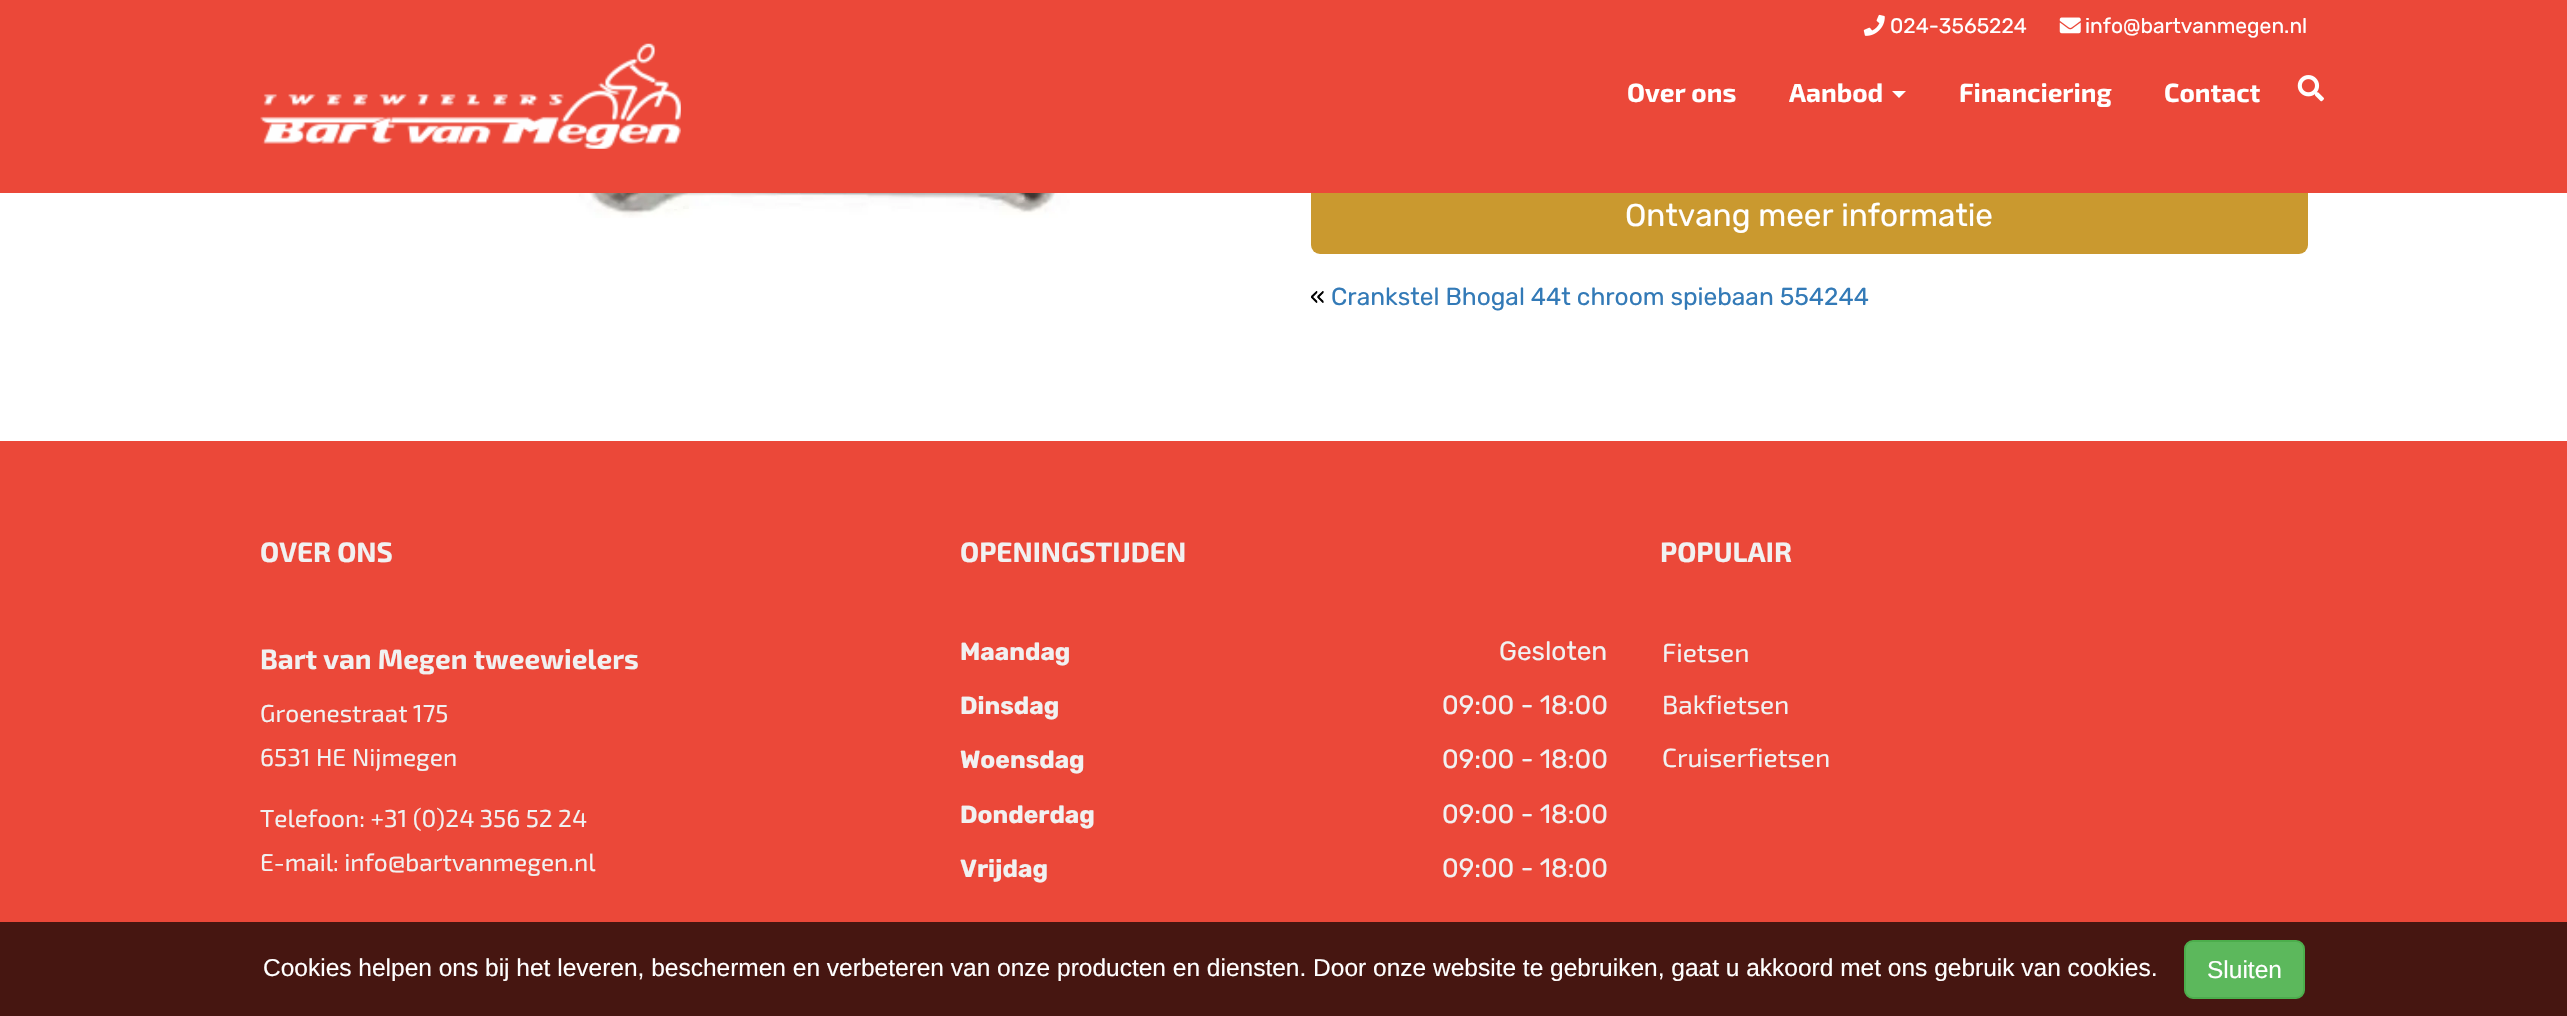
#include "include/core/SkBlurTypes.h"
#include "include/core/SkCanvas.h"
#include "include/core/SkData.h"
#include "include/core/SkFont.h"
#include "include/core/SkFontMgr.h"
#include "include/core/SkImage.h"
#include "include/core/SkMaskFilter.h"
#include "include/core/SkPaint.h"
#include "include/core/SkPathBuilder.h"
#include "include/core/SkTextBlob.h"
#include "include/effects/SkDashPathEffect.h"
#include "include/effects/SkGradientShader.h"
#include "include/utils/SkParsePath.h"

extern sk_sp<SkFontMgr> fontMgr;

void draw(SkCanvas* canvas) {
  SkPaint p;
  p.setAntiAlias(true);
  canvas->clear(SK_ColorWHITE);
  p.setColor(SkColorSetRGB(202, 153, 47));
  canvas->drawRoundRect(SkRect::MakeLTRB(1311, 177, 2308, 254), 9, 9, p);
  p.setColor(SkColorSetRGB(235, 72, 57));
  canvas->drawRect(SkRect::MakeLTRB(0, 0, 2567, 193), p);
  canvas->drawImageRect(SkImages::DeferredFromEncodedData(SkData::MakeFromFileName("images/1.png")), SkRect::MakeLTRB(1863, 14, 1885, 36), SkSamplingOptions());
  canvas->drawImageRect(SkImages::DeferredFromEncodedData(SkData::MakeFromFileName("images/2.png")), SkRect::MakeLTRB(2059, 17, 2081, 34), SkSamplingOptions());
  canvas->drawImageRect(SkImages::DeferredFromEncodedData(SkData::MakeFromFileName("images/3.png")), SkRect::MakeLTRB(260, 43, 681, 149), SkSamplingOptions());
  p.setColor(SK_ColorWHITE);
  canvas->drawPath(SkPathBuilder().moveTo(1892, 91).lineTo(1906, 91).lineTo(1899, 98).close().detach(), p);
  canvas->drawImageRect(SkImages::DeferredFromEncodedData(SkData::MakeFromFileName("images/4.png")), SkRect::MakeLTRB(2297, 75, 2324, 102), SkSamplingOptions());
  canvas->drawImageRect(SkImages::DeferredFromEncodedData(SkData::MakeFromFileName("images/5.png")), SkRect::MakeLTRB(458, 193, 1070, 218), SkSamplingOptions());
  p.setColor(SkColorSetRGB(235, 72, 57));
  canvas->drawRect(SkRect::MakeLTRB(0, 441, 2567, 1016), p);
  p.setColor(SkColorSetARGB(179, 0, 0, 0));
  canvas->drawRect(SkRect::MakeLTRB(0, 922, 2567, 1016), p);
  p.setColor(SkColorSetRGB(92, 184, 92));
  canvas->drawRoundRect(SkRect::MakeLTRB(2185, 941, 2304, 998), 8, 8, p);
  p.setStyle(SkPaint::kStroke_Style);
  p.setStrokeWidth(2);
  p.setColor(SkColorSetRGB(76, 174, 76));
  canvas->drawRoundRect(SkRect::MakeLTRB(2185, 941, 2304, 998), 8, 8, p);
  SkFont font1(fontMgr->matchFamilyStyle("Rubik", SkFontStyle::Normal()), 21);
  font1.setSubpixel(true);
  p.setStyle(SkPaint::kFill_Style);
  p.setColor(SK_ColorWHITE);
  canvas->drawString("024-3565224", 1890, 33, font1, p);
  canvas->drawString("info@bartvanmegen.nl", 2085, 33, font1, p);
  SkFont font2(fontMgr->matchFamilyStyle("Exo 2", SkFontStyle::Bold()), 26.25f);
  font2.setSubpixel(true);
  canvas->drawString("Over ons", 1627, 102, font2, p);
  canvas->drawString("Aanbod", 1789, 102, font2, p);
  canvas->drawString("Financiering", 1959, 102, font2, p);
  canvas->drawString("Contact", 2164, 102, font2, p);
  SkFont font3(fontMgr->matchFamilyStyle("Rubik", SkFontStyle::Normal()), 31.5f);
  font3.setSubpixel(true);
  canvas->drawString("Ontvang meer informatie", 1625, 226, font3, p);
  SkFont font4(fontMgr->matchFamilyStyle("Rubik", SkFontStyle::Normal()), 24.5f);
  font4.setSubpixel(true);
  p.setColor(SK_ColorBLACK);
  canvas->drawString("«", 1310, 305, font4, p);
  p.setColor(SkColorSetRGB(51, 122, 183));
  canvas->drawString("Crankstel Bhogal 44t chroom spiebaan 554244", 1331, 305, font4, p);
  SkFont font5(fontMgr->matchFamilyStyle("Exo 2", SkFontStyle::Bold()), 28);
  font5.setSubpixel(true);
  p.setColor(SkColorSetRGB(241, 241, 241));
  canvas->drawString("OVER ONS", 260, 562, font5, p);
  canvas->drawString("Bart van Megen tweewielers", 260, 669, font5, p);
  SkFont font6(fontMgr->matchFamilyStyle("Exo 2", SkFontStyle::Normal()), 24.5f);
  font6.setSubpixel(true);
  canvas->drawString("Groenestraat 175", 260, 722, font6, p);
  canvas->drawString("6531 HE", 260, 766, font6, p);
  canvas->drawString("Nijmegen", 352, 766, font6, p);
  canvas->drawString("Telefoon: +31 (0)24 356 52 24", 260, 827, font6, p);
  canvas->drawString("E-mail: info@bartvanmegen.nl", 260, 871, font6, p);
  canvas->drawString("OPENINGSTIJDEN", 960, 562, font5, p);
  SkFont font7(fontMgr->matchFamilyStyle("Rubik", SkFontStyle::Bold()), 24.5f);
  font7.setSubpixel(true);
  canvas->drawString("Maandag", 960, 660, font7, p);
  SkFont font8(fontMgr->matchFamilyStyle("Rubik", SkFontStyle::Normal()), 26.25f);
  font8.setSubpixel(true);
  canvas->drawString("Gesloten", 1499, 660, font8, p);
  canvas->drawString("Dinsdag", 960, 714, font7, p);
  canvas->drawString("09:00 - 18:00", 1442, 714, font8, p);
  canvas->drawString("Woensdag", 960, 768, font7, p);
  canvas->drawString("09:00 - 18:00", 1442, 768, font8, p);
  canvas->drawString("Donderdag", 960, 823, font7, p);
  canvas->drawString("09:00 - 18:00", 1442, 823, font8, p);
  canvas->drawString("Vrijdag", 960, 877, font7, p);
  canvas->drawString("09:00 - 18:00", 1442, 877, font8, p);
  canvas->drawString("POPULAIR", 1660, 562, font5, p);
  SkFont font9(fontMgr->matchFamilyStyle("Exo 2", SkFontStyle::Normal()), 26.25f);
  font9.setSubpixel(true);
  canvas->drawString("Fietsen", 1662, 662, font9, p);
  canvas->drawString("Bakfietsen", 1662, 714, font9, p);
  canvas->drawString("Cruiserfietsen", 1662, 767, font9, p);
  SkFont font10(fontMgr->matchFamilyStyle("Liberation Sans", SkFontStyle::Normal()), 24.5f);
  font10.setSubpixel(true);
  p.setColor(SK_ColorWHITE);
  canvas->drawString("Cookies helpen ons bij het leveren, beschermen en verbeteren van onze producten en diensten. Door onze website te gebruiken, gaat u akkoord met ons gebruik van cookies.", 263, 976, font10, p);
  canvas->drawString("Sluiten", 2207, 978, font10, p);
}
